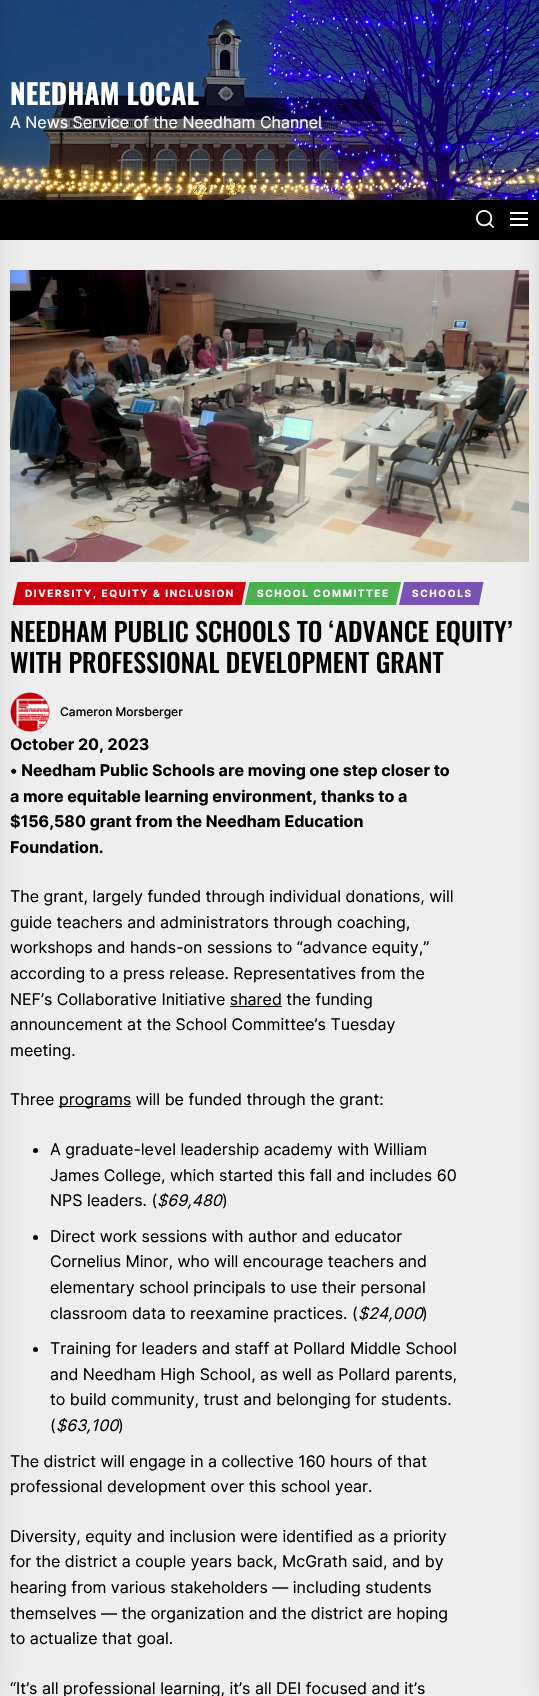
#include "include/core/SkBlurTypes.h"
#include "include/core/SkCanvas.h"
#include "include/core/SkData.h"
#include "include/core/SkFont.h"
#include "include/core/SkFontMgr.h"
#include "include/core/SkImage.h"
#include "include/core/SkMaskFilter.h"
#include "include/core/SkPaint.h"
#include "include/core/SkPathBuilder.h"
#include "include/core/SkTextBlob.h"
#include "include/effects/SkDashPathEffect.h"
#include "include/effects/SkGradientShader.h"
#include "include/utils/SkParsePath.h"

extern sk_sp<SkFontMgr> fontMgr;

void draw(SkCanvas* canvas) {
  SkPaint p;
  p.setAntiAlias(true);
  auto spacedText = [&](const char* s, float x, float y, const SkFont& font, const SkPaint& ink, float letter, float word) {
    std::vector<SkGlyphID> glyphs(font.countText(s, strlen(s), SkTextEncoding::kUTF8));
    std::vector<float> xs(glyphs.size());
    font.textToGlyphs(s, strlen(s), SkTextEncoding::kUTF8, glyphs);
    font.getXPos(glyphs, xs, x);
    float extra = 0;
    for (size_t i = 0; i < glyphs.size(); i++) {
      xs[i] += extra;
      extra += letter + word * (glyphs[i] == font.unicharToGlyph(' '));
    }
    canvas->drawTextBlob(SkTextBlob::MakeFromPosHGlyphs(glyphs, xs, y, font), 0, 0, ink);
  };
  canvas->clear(SkColorSetRGB(238, 238, 238));
  canvas->drawImageRect(SkImages::DeferredFromEncodedData(SkData::MakeFromFileName("images/1.png")), SkRect::MakeLTRB(0, 0, 539, 200), SkSamplingOptions());
  p.setColor(SK_ColorBLACK);
  canvas->drawRect(SkRect::MakeLTRB(0, 200, 539, 240), p);
  canvas->drawImageRect(SkImages::DeferredFromEncodedData(SkData::MakeFromFileName("images/2.png")), SkRect::MakeLTRB(476, 210, 494, 228), SkSamplingOptions());
  canvas->drawImageRect(SkImages::DeferredFromEncodedData(SkData::MakeFromFileName("images/3.png")), SkRect::MakeLTRB(510, 212, 528, 226), SkSamplingOptions());
  canvas->drawImageRect(SkImages::DeferredFromEncodedData(SkData::MakeFromFileName("images/4.png")), SkRect::MakeLTRB(10, 270, 529, 562), SkSamplingOptions());
  p.setColor(SkColorSetARGB(26, 0, 0, 0));
  p.setMaskFilter(SkMaskFilter::MakeBlur(kNormal_SkBlurStyle, 10));
  canvas->drawRect(SkRect::MakeLTRB(539, 0, 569, 1696), p);
  p.setMaskFilter(nullptr);
  p.setColor(SkColorSetRGB(204, 0, 16));
  canvas->drawRect(SkRect::MakeLTRB(20, 582, 236, 605), p);
  canvas->drawPath(SkPathBuilder().moveTo(234.5f, 597.5f).lineTo(236, 582).lineTo(246, 582).lineTo(241.5f, 605).lineTo(233.5f, 605).close().detach(), p);
  p.setColor(SkColorSetRGB(76, 175, 80));
  canvas->drawRect(SkRect::MakeLTRB(252, 582, 391, 605), p);
  canvas->drawPath(SkPathBuilder().moveTo(401, 582.5f).lineTo(396, 605).lineTo(388, 605).lineTo(391, 582).lineTo(401, 582).close().detach(), p);
  p.setColor(SkColorSetRGB(121, 82, 179));
  canvas->drawRect(SkRect::MakeLTRB(407, 582, 474, 605), p);
  canvas->drawPath(SkPathBuilder().moveTo(472.5f, 593).lineTo(473.5f, 582).lineTo(483.5f, 582).lineTo(479, 605).lineTo(471, 605).close().detach(), p);
  canvas->drawImageRect(SkImages::DeferredFromEncodedData(SkData::MakeFromFileName("images/5.png")), SkRect::MakeLTRB(10, 692, 50, 732), SkSamplingOptions());
  p.setColor(SK_ColorBLACK);
  canvas->drawRect(SkRect::MakeLTRB(230, 1006, 282, 1007), p);
  canvas->drawRect(SkRect::MakeLTRB(59, 1106, 131, 1107), p);
  canvas->drawCircle(35.5f, 1150.5f, 2.5f, p);
  canvas->drawCircle(35.5f, 1237.5f, 2.5f, p);
  canvas->drawCircle(35.5f, 1349.5f, 2.5f, p);
  SkFont font1(fontMgr->matchFamilyStyle("Oswald", SkFontStyle::Bold()), 28);
  font1.setSubpixel(true);
  p.setColor(SK_ColorWHITE);
  canvas->drawString("NEEDHAM LOCAL", 10, 105, font1, p);
  SkFont font2(fontMgr->matchFamilyStyle("Inter", SkFontStyle::Normal()), 16);
  font2.setSubpixel(true);
  canvas->drawString("A News Service of the Needham Channel", 10, 128, font2, p);
  SkFont font3(fontMgr->matchFamilyStyle("Inter", SkFontStyle::Bold()), 10);
  font3.setSubpixel(true);
  spacedText("DIVERSITY, EQUITY & INCLUSION", 25, 597, font3, p, 1.6f, 0);
  p.setColor(SkColorSetRGB(204, 0, 16));
  canvas->drawPath(SkPathBuilder().moveTo(17.5f, 582).lineTo(27.5f, 582).lineTo(20.5f, 605).lineTo(12.5f, 605).lineTo(14.5f, 596).close().detach(), p);
  p.setColor(SkColorSetARGB(26, 0, 0, 0));
  p.setMaskFilter(SkMaskFilter::MakeBlur(kNormal_SkBlurStyle, 12.5f));
  canvas->drawRect(SkRect::MakeLTRB(-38, 0, 0, 1696), p);
  p.setMaskFilter(nullptr);
  p.setColor(SK_ColorWHITE);
  spacedText("SCHOOL COMMITTEE", 257, 597, font3, p, 1.6f, 0);
  p.setColor(SkColorSetRGB(76, 175, 80));
  canvas->drawPath(SkPathBuilder().moveTo(249.5f, 582).lineTo(259, 582).lineTo(252.5f, 605).lineTo(244.5f, 605).close().detach(), p);
  p.setColor(SK_ColorWHITE);
  spacedText("SCHOOLS", 412, 597, font3, p, 1.6f, 0);
  p.setColor(SkColorSetRGB(121, 82, 179));
  canvas->drawPath(SkPathBuilder().moveTo(414, 583).lineTo(407, 605).lineTo(399, 605).lineTo(404, 582).lineTo(414, 582).close().detach(), p);
  SkFont font4(fontMgr->matchFamilyStyle("Oswald", SkFontStyle(500, SkFontStyle::kNormal_Width, SkFontStyle::kUpright_Slant)), 26);
  font4.setSubpixel(true);
  p.setColor(SK_ColorBLACK);
  canvas->drawString("NEEDHAM PUBLIC SCHOOLS TO ‘ADVANCE EQUITY’", 10, 642, font4, p);
  canvas->drawString("WITH PROFESSIONAL DEVELOPMENT GRANT", 10, 673, font4, p);
  SkFont font5(fontMgr->matchFamilyStyle("Inter", SkFontStyle(500, SkFontStyle::kNormal_Width, SkFontStyle::kUpright_Slant)), 12);
  font5.setSubpixel(true);
  canvas->drawString("Cameron Morsberger", 60, 716, font5, p);
  SkFont font6(fontMgr->matchFamilyStyle("Inter", SkFontStyle::Bold()), 16);
  font6.setSubpixel(true);
  canvas->drawString("October 20, 2023", 10, 750, font6, p);
  canvas->drawString("• Needham Public Schools are moving one step closer to", 10, 776, font6, p);
  canvas->drawString("a more equitable learning environment, thanks to a", 10, 802, font6, p);
  canvas->drawString("$156,580 grant from the Needham Education", 10, 827, font6, p);
  canvas->drawString("Foundation.", 10, 853, font6, p);
  canvas->drawString("The grant, largely funded through individual donations, will", 10, 902, font2, p);
  canvas->drawString("guide teachers and administrators through coaching,", 10, 928, font2, p);
  canvas->drawString("workshops and hands-on sessions to “advance equity,”", 10, 953, font2, p);
  canvas->drawString("according to a press release. Representatives from the", 10, 979, font2, p);
  canvas->drawString("NEF’s Collaborative Initiative shared the funding", 10, 1005, font2, p);
  canvas->drawString("announcement at the School Committee’s Tuesday", 10, 1030, font2, p);
  canvas->drawString("meeting.", 10, 1056, font2, p);
  canvas->drawString("Three", 10, 1105, font2, p);
  canvas->drawString("programs will be funded through the grant:", 59, 1105, font2, p);
  canvas->drawString("A graduate-level leadership academy with William", 50, 1155, font2, p);
  canvas->drawString("James College, which started this fall and includes 60", 50, 1181, font2, p);
  canvas->drawString("NPS leaders. (", 50, 1206, font2, p);
  SkFont font7(fontMgr->matchFamilyStyle("Inter", SkFontStyle::Italic()), 16);
  font7.setSubpixel(true);
  canvas->drawString("$69,480", 157, 1206, font7, p);
  canvas->drawString(")", 222, 1206, font2, p);
  canvas->drawString("Direct work sessions with author and educator", 50, 1242, font2, p);
  canvas->drawString("Cornelius Minor, who will encourage teachers and", 50, 1267, font2, p);
  canvas->drawString("elementary school principals to use their personal", 50, 1293, font2, p);
  canvas->drawString("classroom data to reexamine practices. (", 50, 1319, font2, p);
  canvas->drawString("$24,000", 358, 1319, font7, p);
  canvas->drawString(")", 422, 1319, font2, p);
  canvas->drawString("Training for leaders and staff at Pollard Middle School", 50, 1354, font2, p);
  canvas->drawString("and Needham High School, as well as Pollard parents,", 50, 1380, font2, p);
  canvas->drawString("to build community, trust and belonging for students.", 50, 1405, font2, p);
  canvas->drawString("(", 50, 1431, font2, p);
  canvas->drawString("$63,100", 56, 1431, font7, p);
  canvas->drawString(")", 118, 1431, font2, p);
  canvas->drawString("The district will engage in a collective 160 hours of that", 10, 1467, font2, p);
  canvas->drawString("professional development over this school year.", 10, 1492, font2, p);
  canvas->drawString("Diversity, equity and inclusion were identified as a priority", 10, 1542, font2, p);
  canvas->drawString("for the district a couple years back, McGrath said, and by", 10, 1567, font2, p);
  canvas->drawString("hearing from various stakeholders — including students", 10, 1593, font2, p);
  canvas->drawString("themselves — the organization and the district are hoping", 10, 1619, font2, p);
  canvas->drawString("to actualize that goal.", 10, 1644, font2, p);
  canvas->drawString("“It’s all professional learning, it’s all DEI focused and it’s", 10, 1694, font2, p);
}
